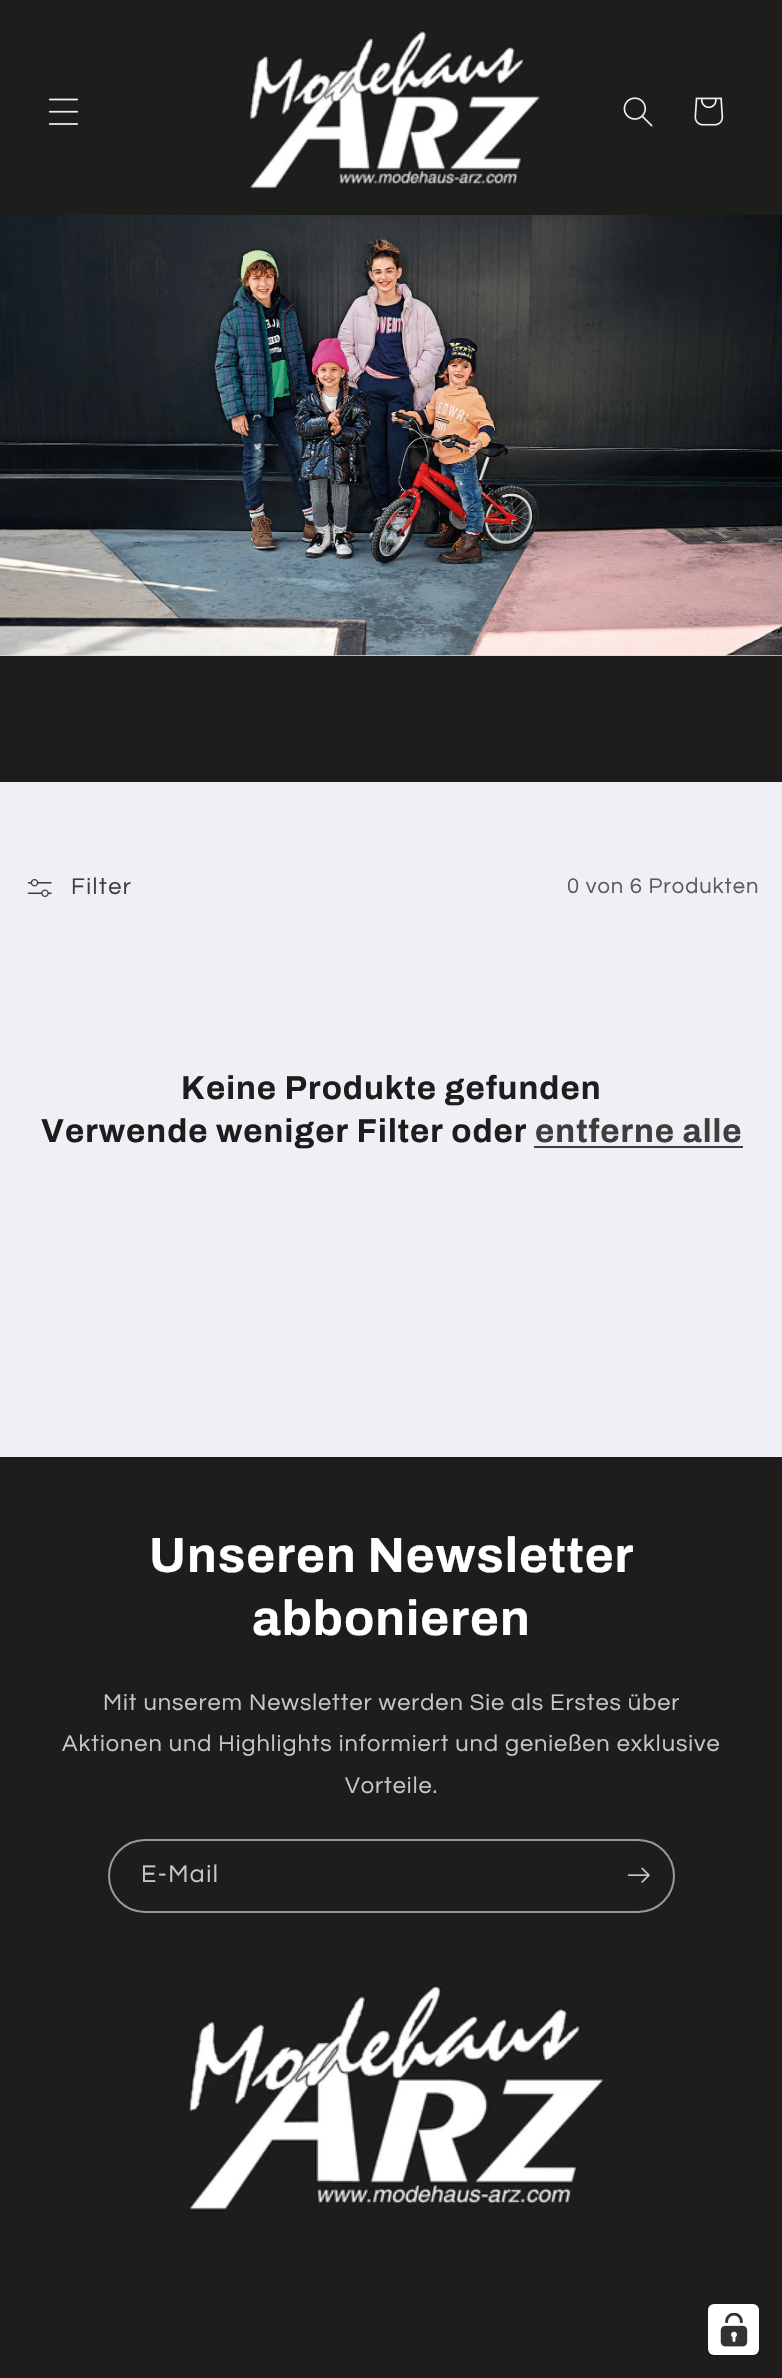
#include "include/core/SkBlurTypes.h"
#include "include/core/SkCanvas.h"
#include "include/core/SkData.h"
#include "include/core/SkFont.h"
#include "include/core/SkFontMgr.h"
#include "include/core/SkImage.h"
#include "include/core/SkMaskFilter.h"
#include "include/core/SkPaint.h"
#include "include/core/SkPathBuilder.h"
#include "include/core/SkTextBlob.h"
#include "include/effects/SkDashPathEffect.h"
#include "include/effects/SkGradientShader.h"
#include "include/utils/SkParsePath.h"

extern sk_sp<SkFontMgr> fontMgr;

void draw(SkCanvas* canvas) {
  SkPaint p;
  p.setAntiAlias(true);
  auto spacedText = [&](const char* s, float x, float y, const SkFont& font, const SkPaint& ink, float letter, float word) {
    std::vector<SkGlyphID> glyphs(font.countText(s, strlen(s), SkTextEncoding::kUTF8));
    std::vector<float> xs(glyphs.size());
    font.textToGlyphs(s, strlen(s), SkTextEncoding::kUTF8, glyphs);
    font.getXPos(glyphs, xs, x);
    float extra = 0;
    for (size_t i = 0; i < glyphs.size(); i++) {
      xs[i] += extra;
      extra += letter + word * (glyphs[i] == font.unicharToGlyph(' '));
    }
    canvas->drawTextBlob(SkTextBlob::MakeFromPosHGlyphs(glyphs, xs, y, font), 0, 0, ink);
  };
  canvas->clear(SkColorSetRGB(239, 240, 245));
  p.setColor(SkColorSetRGB(29, 29, 27));
  canvas->drawRect(SkRect::MakeLTRB(0, 0, 782, 215), p);
  canvas->drawImageRect(SkImages::DeferredFromEncodedData(SkData::MakeFromFileName("images/1.png")), SkRect::MakeLTRB(48, 98, 79, 125), SkSamplingOptions());
  canvas->drawImageRect(SkImages::DeferredFromEncodedData(SkData::MakeFromFileName("images/2.png")), SkRect::MakeLTRB(248, 30, 541, 189), SkSamplingOptions());
  canvas->drawImageRect(SkImages::DeferredFromEncodedData(SkData::MakeFromFileName("images/3.png")), SkRect::MakeLTRB(623, 97, 653, 127), SkSamplingOptions());
  canvas->drawImageRect(SkImages::DeferredFromEncodedData(SkData::MakeFromFileName("images/4.png")), SkRect::MakeLTRB(694, 97, 724, 126), SkSamplingOptions());
  p.setColor(SkColorSetRGB(219, 219, 223));
  canvas->drawRect(SkRect::MakeLTRB(0, 655, 782, 656), p);
  canvas->drawImageRect(SkImages::DeferredFromEncodedData(SkData::MakeFromFileName("images/5.png")), SkRect::MakeLTRB(0, 215, 782, 656), SkSamplingOptions());
  p.setColor(SkColorSetRGB(29, 29, 27));
  canvas->drawRect(SkRect::MakeLTRB(0, 656, 782, 782), p);
  canvas->drawImageRect(SkImages::DeferredFromEncodedData(SkData::MakeFromFileName("images/6.png")), SkRect::MakeLTRB(27, 879, 52, 897), SkSamplingOptions());
  p.setColor(SkColorSetRGB(61, 61, 60));
  canvas->drawRect(SkRect::MakeLTRB(534, 1146, 743, 1148), p);
  p.setColor(SkColorSetRGB(29, 29, 27));
  canvas->drawRect(SkRect::MakeLTRB(0, 1457, 782, 2378), p);
  p.setStyle(SkPaint::kStroke_Style);
  p.setStrokeWidth(2);
  p.setColor(SkColorSetRGB(153, 153, 152));
  canvas->drawRoundRect(SkRect::MakeLTRB(109, 1840, 674, 1912), 36, 36, p);
  canvas->drawImageRect(SkImages::DeferredFromEncodedData(SkData::MakeFromFileName("images/7.png")), SkRect::MakeLTRB(627, 1867, 650, 1883), SkSamplingOptions());
  canvas->drawImageRect(SkImages::DeferredFromEncodedData(SkData::MakeFromFileName("images/8.png")), SkRect::MakeLTRB(189, 1986, 604, 2211), SkSamplingOptions());
  p.setColor(SkColorSetRGB(25, 25, 23));
  canvas->drawRoundRect(SkRect::MakeLTRB(708, 2304, 760, 2356), 7, 7, p);
  p.setStyle(SkPaint::kFill_Style);
  p.setColor(SK_ColorWHITE);
  canvas->drawRoundRect(SkRect::MakeLTRB(708, 2304, 759, 2355), 6, 6, p);
  canvas->drawImageRect(SkImages::DeferredFromEncodedData(SkData::MakeFromFileName("images/9.png")), SkRect::MakeLTRB(720, 2313, 748, 2347), SkSamplingOptions());
  SkFont font1(fontMgr->matchFamilyStyle("Questrial", SkFontStyle::Normal()), 23.6f);
  font1.setSubpixel(true);
  p.setColor(SkColorSetRGB(61, 61, 60));
  spacedText("Filter", 71, 894, font1, p, 1.5f, 0);
  SkFont font2(fontMgr->matchFamilyStyle("Questrial", SkFontStyle::Normal()), 22);
  font2.setSubpixel(true);
  p.setColor(SkColorSetRGB(92, 92, 92));
  spacedText("0 von 6 Produkten", 567, 893, font2, p, 0.95f, 0);
  SkFont font3(fontMgr->matchFamilyStyle("Archivo", SkFontStyle::Bold()), 33);
  font3.setSubpixel(true);
  p.setColor(SkColorSetRGB(29, 29, 27));
  spacedText("Keine Produkte gefunden", 181, 1099, font3, p, 1, 0);
  spacedText("Verwende weniger Filter oder", 41, 1142, font3, p, 1, 0);
  p.setColor(SkColorSetRGB(61, 61, 60));
  spacedText("entferne alle", 535, 1142, font3, p, 1, 0);
  SkFont font4(fontMgr->matchFamilyStyle("Archivo", SkFontStyle::Bold()), 49.5f);
  font4.setSubpixel(true);
  p.setColor(SK_ColorWHITE);
  spacedText("Unseren Newsletter", 149, 1572, font4, p, 1, 0);
  spacedText("abbonieren", 252, 1635, font4, p, 1, 0);
  p.setColor(SkColorSetRGB(199, 199, 198));
  spacedText("Mit unserem Newsletter werden Sie als Erstes über", 103, 1710, font1, p, 0.95f, 0);
  spacedText("Aktionen und Highlights informiert und genießen exklusive", 62, 1751, font1, p, 0.95f, 0);
  spacedText("Vorteile.", 345, 1793, font1, p, 0.95f, 0);
  SkFont font5(fontMgr->matchFamilyStyle("Questrial", SkFontStyle::Normal()), 25);
  font5.setSubpixel(true);
  spacedText("E-Mail", 141, 1882, font5, p, 1.5f, 0);
}
